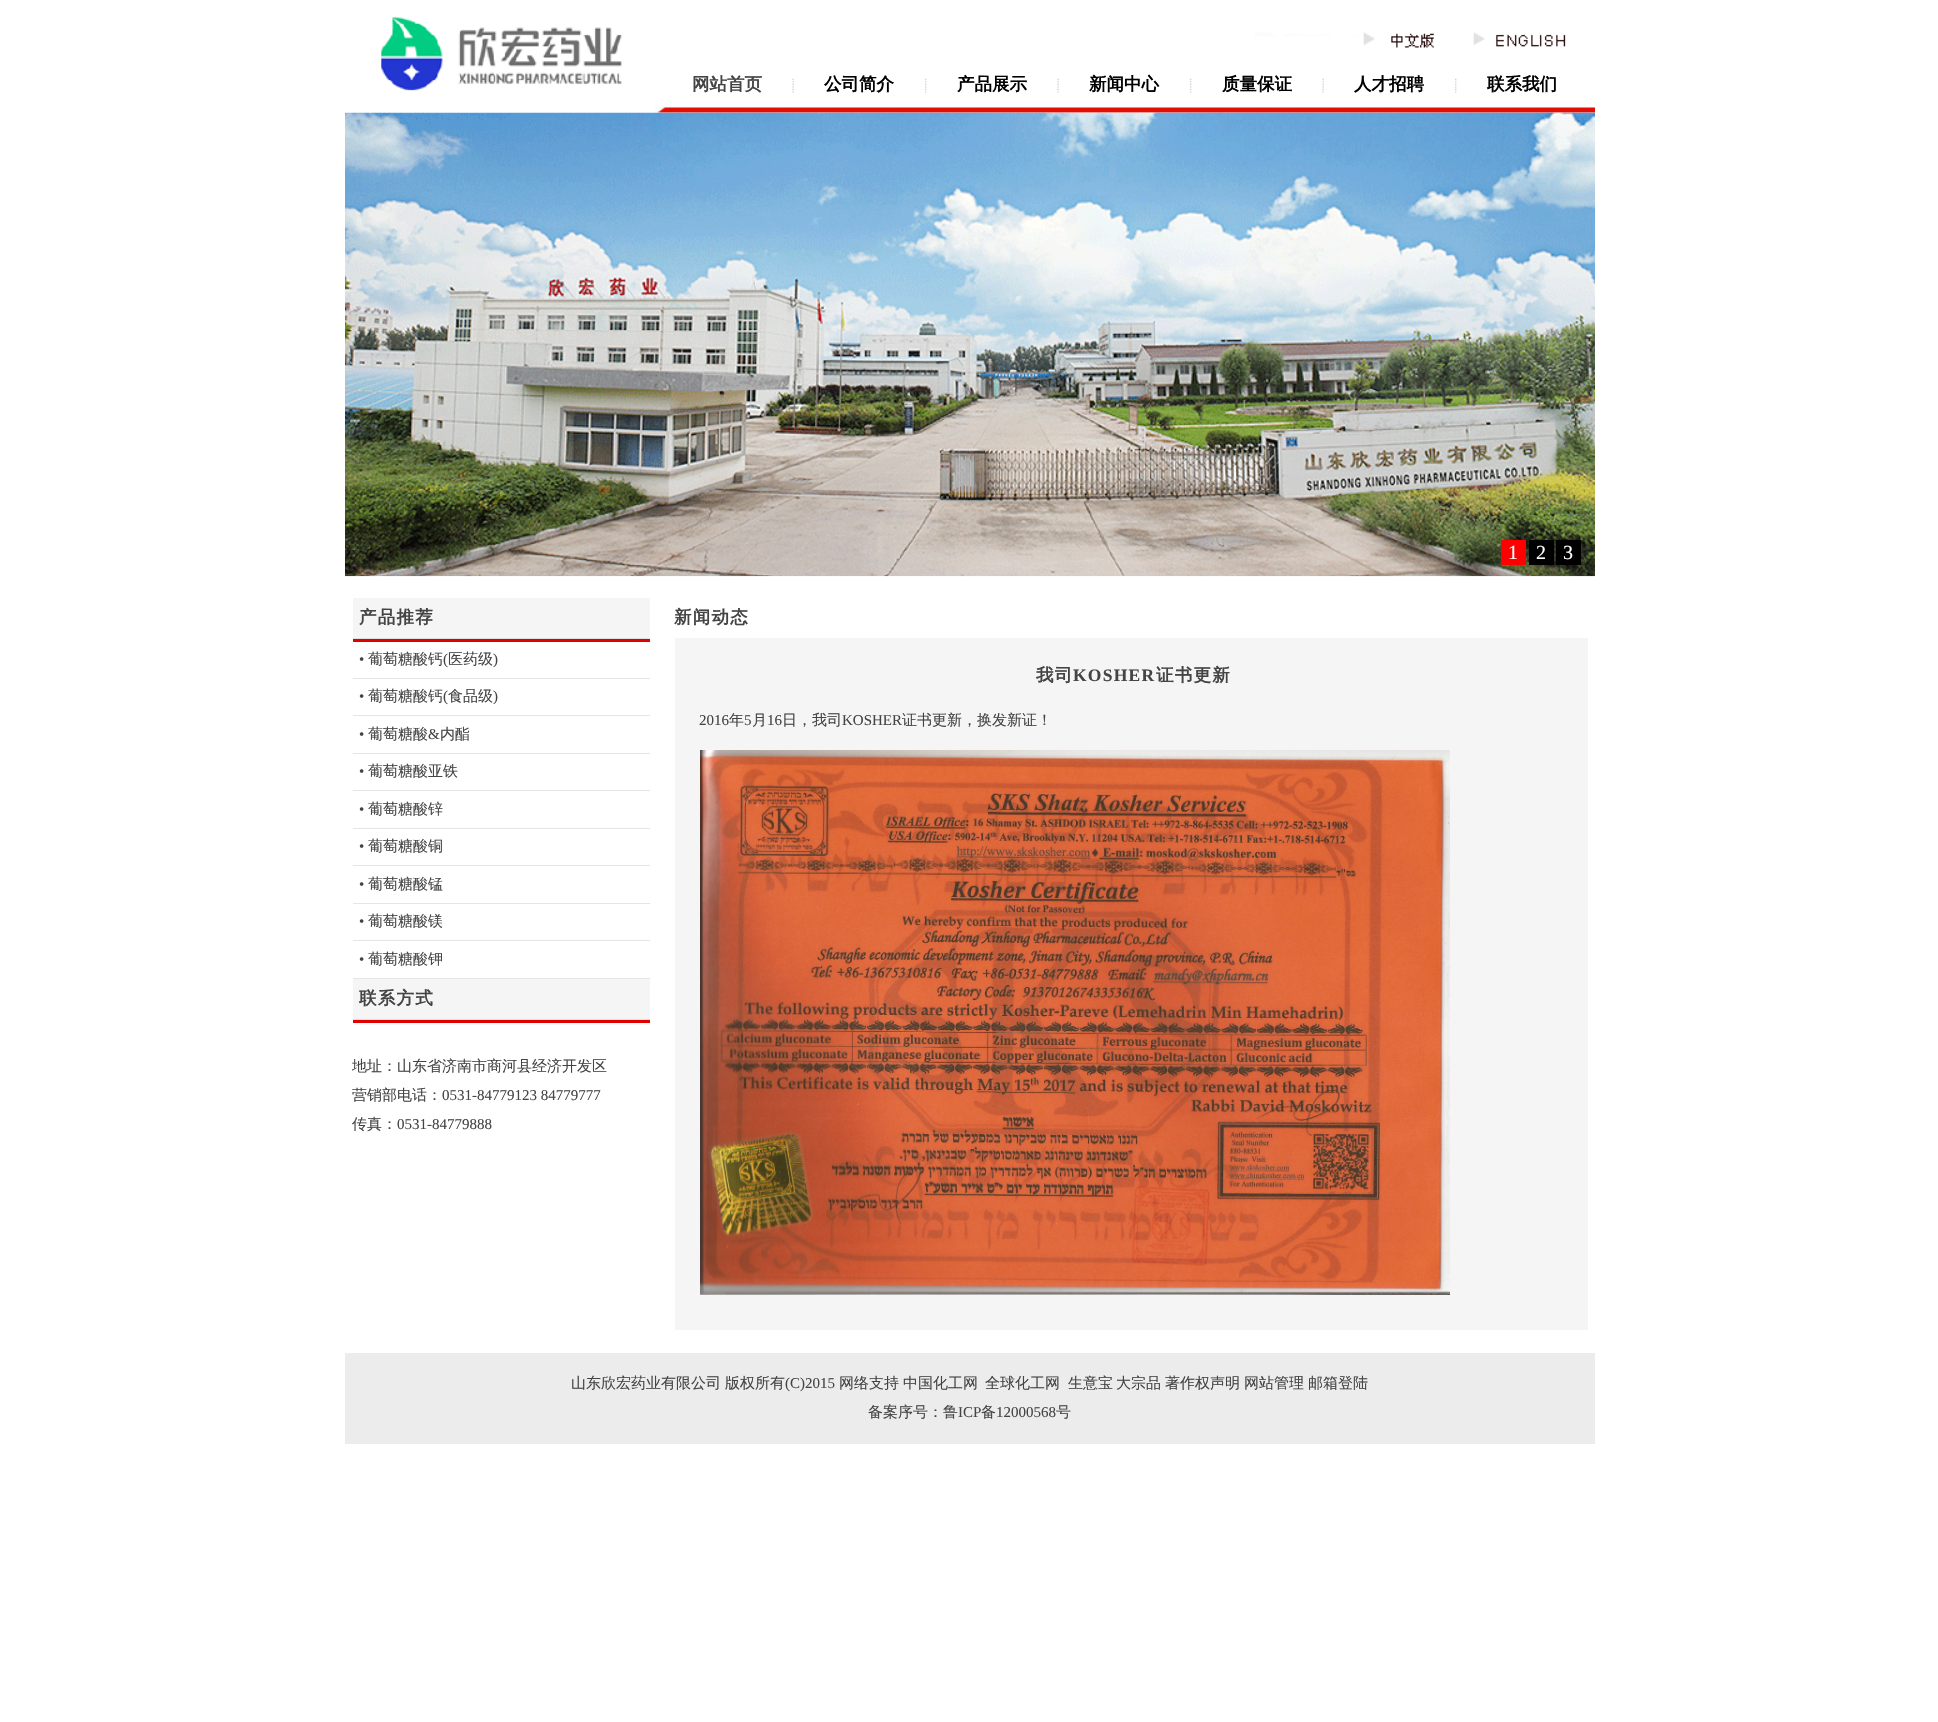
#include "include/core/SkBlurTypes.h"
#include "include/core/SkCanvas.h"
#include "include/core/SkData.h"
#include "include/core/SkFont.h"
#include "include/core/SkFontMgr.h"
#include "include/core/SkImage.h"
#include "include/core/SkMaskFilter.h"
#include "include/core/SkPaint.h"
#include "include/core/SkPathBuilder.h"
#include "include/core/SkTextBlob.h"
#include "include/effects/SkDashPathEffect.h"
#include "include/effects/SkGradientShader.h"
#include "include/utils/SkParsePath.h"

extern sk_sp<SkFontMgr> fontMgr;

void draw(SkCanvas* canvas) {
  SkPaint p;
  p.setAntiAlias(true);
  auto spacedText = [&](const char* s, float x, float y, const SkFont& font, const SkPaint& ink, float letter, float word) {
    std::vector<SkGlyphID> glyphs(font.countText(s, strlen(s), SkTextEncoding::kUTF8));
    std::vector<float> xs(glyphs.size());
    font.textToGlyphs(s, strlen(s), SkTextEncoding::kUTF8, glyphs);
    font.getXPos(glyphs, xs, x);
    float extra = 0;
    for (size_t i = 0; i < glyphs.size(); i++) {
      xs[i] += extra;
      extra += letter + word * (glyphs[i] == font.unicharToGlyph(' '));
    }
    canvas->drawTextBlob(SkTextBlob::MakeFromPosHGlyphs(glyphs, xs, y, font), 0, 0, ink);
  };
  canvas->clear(SK_ColorWHITE);
  canvas->drawImageRect(SkImages::DeferredFromEncodedData(SkData::MakeFromFileName("images/1.png")), SkRect::MakeLTRB(381, 17, 622, 91), SkSamplingOptions());
  canvas->drawImageRect(SkImages::DeferredFromEncodedData(SkData::MakeFromFileName("images/2.png")), SkRect::MakeLTRB(1254, 6, 1590, 48), SkSamplingOptions());
  canvas->drawImageRect(SkImages::DeferredFromEncodedData(SkData::MakeFromFileName("images/3.png")), SkRect::MakeLTRB(792, 78, 794, 93), SkSamplingOptions());
  canvas->drawImageRect(SkImages::DeferredFromEncodedData(SkData::MakeFromFileName("images/4.png")), SkRect::MakeLTRB(925, 78, 927, 93), SkSamplingOptions());
  canvas->drawImageRect(SkImages::DeferredFromEncodedData(SkData::MakeFromFileName("images/3.png")), SkRect::MakeLTRB(1057, 78, 1059, 93), SkSamplingOptions());
  canvas->drawImageRect(SkImages::DeferredFromEncodedData(SkData::MakeFromFileName("images/4.png")), SkRect::MakeLTRB(1190, 78, 1192, 93), SkSamplingOptions());
  canvas->drawImageRect(SkImages::DeferredFromEncodedData(SkData::MakeFromFileName("images/3.png")), SkRect::MakeLTRB(1322, 78, 1324, 93), SkSamplingOptions());
  canvas->drawImageRect(SkImages::DeferredFromEncodedData(SkData::MakeFromFileName("images/4.png")), SkRect::MakeLTRB(1455, 78, 1457, 93), SkSamplingOptions());
  canvas->drawImageRect(SkImages::DeferredFromEncodedData(SkData::MakeFromFileName("images/5.png")), SkRect::MakeLTRB(654, 105, 1595, 113), SkSamplingOptions());
  canvas->drawImageRect(SkImages::DeferredFromEncodedData(SkData::MakeFromFileName("images/6.png")), SkRect::MakeLTRB(345, 112, 1595, 577), SkSamplingOptions());
  p.setColor(SkColorSetRGB(255, 0, 0));
  canvas->drawRect(SkRect::MakeLTRB(1501, 540, 1526, 565), p);
  p.setColor(SK_ColorBLACK);
  canvas->drawRect(SkRect::MakeLTRB(1529, 540, 1554, 565), p);
  canvas->drawRect(SkRect::MakeLTRB(1556, 540, 1581, 565), p);
  p.setColor(SkColorSetRGB(245, 245, 245));
  canvas->drawRect(SkRect::MakeLTRB(353, 598, 650, 638), p);
  p.setColor(SkColorSetRGB(223, 223, 223));
  canvas->drawRect(SkRect::MakeLTRB(353, 638, 650, 639), p);
  p.setColor(SkColorSetRGB(224, 0, 0));
  canvas->drawRect(SkRect::MakeLTRB(353, 639, 650, 642), p);
  p.setColor(SkColorSetRGB(229, 229, 229));
  canvas->drawRect(SkRect::MakeLTRB(353, 678, 650, 679), p);
  canvas->drawRect(SkRect::MakeLTRB(353, 715, 650, 716), p);
  canvas->drawRect(SkRect::MakeLTRB(353, 753, 650, 754), p);
  canvas->drawRect(SkRect::MakeLTRB(353, 790, 650, 791), p);
  canvas->drawRect(SkRect::MakeLTRB(353, 828, 650, 829), p);
  canvas->drawRect(SkRect::MakeLTRB(353, 865, 650, 866), p);
  canvas->drawRect(SkRect::MakeLTRB(353, 903, 650, 904), p);
  canvas->drawRect(SkRect::MakeLTRB(353, 940, 650, 941), p);
  canvas->drawRect(SkRect::MakeLTRB(353, 978, 650, 979), p);
  p.setColor(SkColorSetRGB(245, 245, 245));
  canvas->drawRect(SkRect::MakeLTRB(353, 979, 650, 1019), p);
  p.setColor(SkColorSetRGB(223, 223, 223));
  canvas->drawRect(SkRect::MakeLTRB(353, 1019, 650, 1020), p);
  p.setColor(SkColorSetRGB(224, 0, 0));
  canvas->drawRect(SkRect::MakeLTRB(353, 1020, 650, 1023), p);
  p.setColor(SkColorSetRGB(245, 245, 245));
  canvas->drawRect(SkRect::MakeLTRB(675, 638, 1588, 1330), p);
  canvas->drawImageRect(SkImages::DeferredFromEncodedData(SkData::MakeFromFileName("images/7.png")), SkRect::MakeLTRB(700, 750, 1450, 1295), SkSamplingOptions());
  p.setColor(SkColorSetRGB(236, 236, 236));
  canvas->drawRect(SkRect::MakeLTRB(345, 1353, 1595, 1444), p);
  SkFont font1(fontMgr->matchFamilyStyle("WenQuanYi Zen Hei", SkFontStyle::Bold()), 17.5f);
  font1.setSubpixel(true);
  p.setColor(SkColorSetRGB(68, 68, 68));
  canvas->drawString("网站首页", 692, 90, font1, p);
  p.setColor(SK_ColorBLACK);
  canvas->drawString("公司简介", 824, 90, font1, p);
  canvas->drawString("产品展示", 957, 90, font1, p);
  canvas->drawString("新闻中心", 1089, 90, font1, p);
  canvas->drawString("质量保证", 1222, 90, font1, p);
  canvas->drawString("人才招聘", 1354, 90, font1, p);
  canvas->drawString("联系我们", 1487, 90, font1, p);
  SkFont font2(fontMgr->matchFamilyStyle("Liberation Serif", SkFontStyle::Normal()), 20);
  font2.setSubpixel(true);
  p.setColor(SK_ColorWHITE);
  canvas->drawString("1", 1508, 559, font2, p);
  canvas->drawString("2", 1536, 559, font2, p);
  canvas->drawString("3", 1563, 559, font2, p);
  p.setColor(SkColorSetRGB(68, 68, 68));
  spacedText("产品推荐", 359, 623, font1, p, 1.25f, 0);
  SkFont font3(fontMgr->matchFamilyStyle("Liberation Serif", SkFontStyle::Normal()), 15);
  font3.setSubpixel(true);
  canvas->drawString("•", 359, 664, font3, p);
  SkFont font4(fontMgr->matchFamilyStyle("WenQuanYi Zen Hei", SkFontStyle(500, SkFontStyle::kNormal_Width, SkFontStyle::kUpright_Slant)), 15);
  font4.setSubpixel(true);
  canvas->drawString("葡萄糖酸钙", 368, 664, font4, p);
  canvas->drawString("(", 443, 664, font3, p);
  canvas->drawString("医药级", 448, 664, font4, p);
  canvas->drawString(")", 493, 664, font3, p);
  canvas->drawString("•", 359, 701, font3, p);
  canvas->drawString("葡萄糖酸钙", 368, 701, font4, p);
  canvas->drawString("(", 443, 701, font3, p);
  canvas->drawString("食品级", 448, 701, font4, p);
  canvas->drawString(")", 493, 701, font3, p);
  canvas->drawString("•", 359, 739, font3, p);
  canvas->drawString("葡萄糖酸", 368, 739, font4, p);
  canvas->drawString("&", 428, 739, font3, p);
  canvas->drawString("内酯", 440, 739, font4, p);
  canvas->drawString("•", 359, 776, font3, p);
  canvas->drawString("葡萄糖酸亚铁", 368, 776, font4, p);
  canvas->drawString("•", 359, 814, font3, p);
  canvas->drawString("葡萄糖酸锌", 368, 814, font4, p);
  canvas->drawString("•", 359, 851, font3, p);
  canvas->drawString("葡萄糖酸铜", 368, 851, font4, p);
  canvas->drawString("•", 359, 889, font3, p);
  canvas->drawString("葡萄糖酸锰", 368, 889, font4, p);
  canvas->drawString("•", 359, 926, font3, p);
  canvas->drawString("葡萄糖酸镁", 368, 926, font4, p);
  canvas->drawString("•", 359, 964, font3, p);
  canvas->drawString("葡萄糖酸钾", 368, 964, font4, p);
  spacedText("联系方式", 359, 1004, font1, p, 1.25f, 0);
  canvas->drawString("地址：山东省济南市商河县经济开发区", 352, 1071, font4, p);
  canvas->drawString("营销部电话：", 352, 1100, font4, p);
  canvas->drawString("0531-84779123 84779777", 442, 1100, font3, p);
  canvas->drawString("传真：", 352, 1129, font4, p);
  canvas->drawString("0531-84779888", 397, 1129, font3, p);
  spacedText("新闻动态", 674, 623, font1, p, 1.25f, 0);
  spacedText("我司", 1036, 681, font1, p, 1.25f, 0);
  SkFont font5(fontMgr->matchFamilyStyle("Liberation Serif", SkFontStyle::Bold()), 17.5f);
  font5.setSubpixel(true);
  spacedText("KOSHER", 1073, 681, font5, p, 1.25f, 0);
  spacedText("证书更新", 1156, 681, font1, p, 1.25f, 0);
  canvas->drawString("2016", 699, 725, font3, p);
  canvas->drawString("年", 729, 725, font4, p);
  canvas->drawString("5", 744, 725, font3, p);
  canvas->drawString("月", 752, 725, font4, p);
  canvas->drawString("16", 767, 725, font3, p);
  canvas->drawString("日，我司", 782, 725, font4, p);
  canvas->drawString("KOSHER", 842, 725, font3, p);
  canvas->drawString("证书更新，换发新证！", 902, 725, font4, p);
  canvas->drawString("山东欣宏药业有限公司", 571, 1388, font4, p);
  canvas->drawString("版权所有", 725, 1388, font4, p);
  canvas->drawString("(C)2015", 785, 1388, font3, p);
  canvas->drawString("网络支持", 839, 1388, font4, p);
  canvas->drawString("中国化工网", 903, 1388, font4, p);
  canvas->drawString("全球化工网", 985, 1388, font4, p);
  canvas->drawString("生意宝", 1068, 1388, font4, p);
  canvas->drawString("大宗品", 1116, 1388, font4, p);
  canvas->drawString("著作权声明", 1165, 1388, font4, p);
  canvas->drawString("网站管理", 1244, 1388, font4, p);
  canvas->drawString("邮箱登陆", 1308, 1388, font4, p);
  canvas->drawString("备案序号：鲁", 868, 1417, font4, p);
  canvas->drawString("ICP", 958, 1417, font3, p);
  canvas->drawString("备", 981, 1417, font4, p);
  canvas->drawString("12000568", 996, 1417, font3, p);
  canvas->drawString("号", 1056, 1417, font4, p);
}
